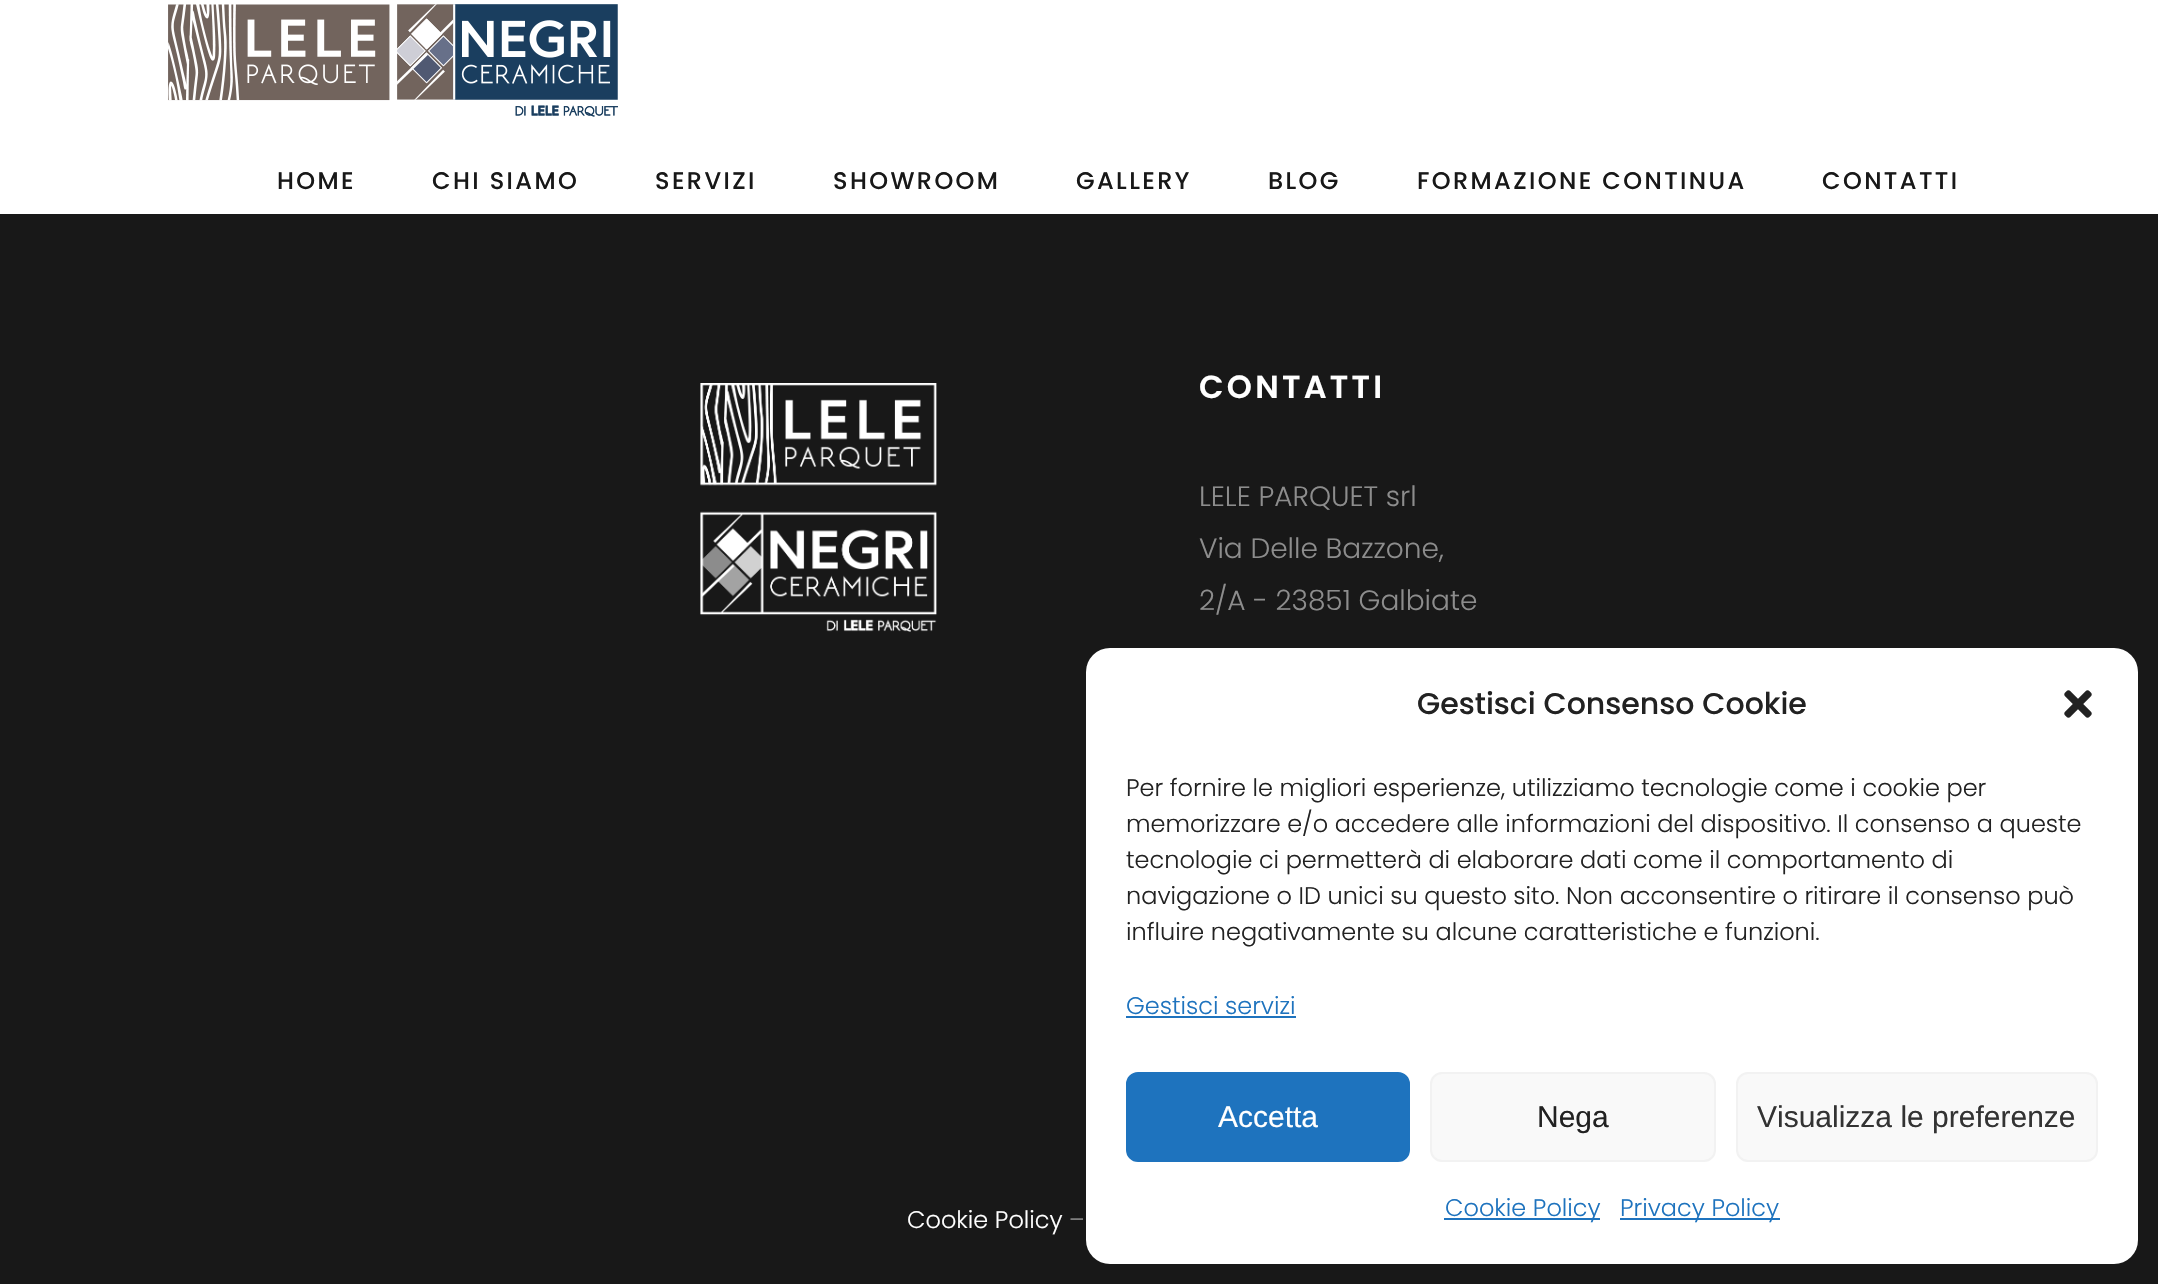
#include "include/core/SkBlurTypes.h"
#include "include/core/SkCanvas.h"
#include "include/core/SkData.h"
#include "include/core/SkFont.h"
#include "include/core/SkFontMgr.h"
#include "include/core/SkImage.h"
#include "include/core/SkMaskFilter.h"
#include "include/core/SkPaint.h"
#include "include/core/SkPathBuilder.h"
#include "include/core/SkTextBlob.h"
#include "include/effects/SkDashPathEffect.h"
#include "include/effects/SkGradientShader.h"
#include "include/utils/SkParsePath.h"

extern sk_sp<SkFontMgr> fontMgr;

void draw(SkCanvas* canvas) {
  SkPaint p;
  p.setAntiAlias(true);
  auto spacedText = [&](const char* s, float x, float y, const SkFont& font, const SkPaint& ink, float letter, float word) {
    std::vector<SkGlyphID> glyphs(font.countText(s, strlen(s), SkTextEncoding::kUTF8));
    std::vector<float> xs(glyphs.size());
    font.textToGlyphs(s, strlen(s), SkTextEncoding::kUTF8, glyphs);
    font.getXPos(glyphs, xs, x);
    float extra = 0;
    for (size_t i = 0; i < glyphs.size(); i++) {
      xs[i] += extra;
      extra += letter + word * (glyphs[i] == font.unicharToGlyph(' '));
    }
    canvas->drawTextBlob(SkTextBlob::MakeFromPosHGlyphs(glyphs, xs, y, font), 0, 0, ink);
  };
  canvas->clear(SK_ColorWHITE);
  canvas->drawImageRect(SkImages::DeferredFromEncodedData(SkData::MakeFromFileName("images/1.png")), SkRect::MakeLTRB(168, 4, 618, 117), SkSamplingOptions());
  p.setColor(SkColorSetRGB(24, 24, 24));
  canvas->drawRect(SkRect::MakeLTRB(0, 214, 2158, 1284), p);
  canvas->drawImageRect(SkImages::DeferredFromEncodedData(SkData::MakeFromFileName("images/2.png")), SkRect::MakeLTRB(700, 383, 937, 632), SkSamplingOptions());
  p.setColor(SK_ColorWHITE);
  canvas->drawRoundRect(SkRect::MakeLTRB(1086, 648, 2138, 1264), 24, 24, p);
  canvas->drawImageRect(SkImages::DeferredFromEncodedData(SkData::MakeFromFileName("images/3.png")), SkRect::MakeLTRB(2064, 690, 2092, 718), SkSamplingOptions());
  p.setColor(SkColorSetRGB(30, 115, 190));
  canvas->drawRect(SkRect::MakeLTRB(1126, 1016, 1296, 1018), p);
  canvas->drawRoundRect(SkRect::MakeLTRB(1127, 1073, 1409, 1161), 11, 11, p);
  p.setStyle(SkPaint::kStroke_Style);
  p.setStrokeWidth(2);
  canvas->drawRoundRect(SkRect::MakeLTRB(1127, 1073, 1409, 1161), 11, 11, p);
  p.setStyle(SkPaint::kFill_Style);
  p.setColor(SkColorSetRGB(249, 249, 249));
  canvas->drawRoundRect(SkRect::MakeLTRB(1431, 1073, 1715, 1161), 11, 11, p);
  p.setStyle(SkPaint::kStroke_Style);
  p.setColor(SkColorSetRGB(242, 242, 242));
  canvas->drawRoundRect(SkRect::MakeLTRB(1431, 1073, 1715, 1161), 11, 11, p);
  p.setStyle(SkPaint::kFill_Style);
  p.setColor(SkColorSetRGB(249, 249, 249));
  canvas->drawRoundRect(SkRect::MakeLTRB(1737, 1073, 2097, 1161), 11, 11, p);
  p.setStyle(SkPaint::kStroke_Style);
  p.setColor(SkColorSetRGB(242, 242, 242));
  canvas->drawRoundRect(SkRect::MakeLTRB(1737, 1073, 2097, 1161), 11, 11, p);
  p.setStyle(SkPaint::kFill_Style);
  p.setColor(SkColorSetRGB(30, 115, 190));
  canvas->drawRect(SkRect::MakeLTRB(1444, 1218, 1600, 1220), p);
  canvas->drawRect(SkRect::MakeLTRB(1620, 1218, 1780, 1220), p);
  SkFont font1(fontMgr->matchFamilyStyle("Poppins", SkFontStyle(500, SkFontStyle::kNormal_Width, SkFontStyle::kUpright_Slant)), 24);
  font1.setSubpixel(true);
  p.setColor(SkColorSetRGB(24, 24, 24));
  spacedText("HOME", 277, 189, font1, p, 2.4f, 0);
  spacedText("CHI SIAMO", 432, 189, font1, p, 2.4f, 0);
  spacedText("SERVIZI", 655, 189, font1, p, 2.4f, 0);
  spacedText("SHOWROOM", 833, 189, font1, p, 2.4f, 0);
  spacedText("GALLERY", 1076, 189, font1, p, 2.4f, 0);
  spacedText("BLOG", 1268, 189, font1, p, 2.4f, 0);
  spacedText("FORMAZIONE CONTINUA", 1417, 189, font1, p, 2.4f, 0);
  spacedText("CONTATTI", 1822, 189, font1, p, 2.4f, 0);
  SkFont font2(fontMgr->matchFamilyStyle("Poppins", SkFontStyle(600, SkFontStyle::kNormal_Width, SkFontStyle::kUpright_Slant)), 32);
  font2.setSubpixel(true);
  p.setColor(SK_ColorWHITE);
  spacedText("CONTATTI", 1199, 398, font2, p, 3.25f, 0);
  SkFont font3(fontMgr->matchFamilyStyle("Poppins", SkFontStyle(300, SkFontStyle::kNormal_Width, SkFontStyle::kUpright_Slant)), 28);
  font3.setSubpixel(true);
  p.setColor(SkColorSetRGB(141, 141, 141));
  canvas->drawString("LELE PARQUET srl", 1199, 506, font3, p);
  canvas->drawString("Via Delle Bazzone,", 1199, 558, font3, p);
  canvas->drawString("2/A - 23851 Galbiate", 1199, 610, font3, p);
  SkFont font4(fontMgr->matchFamilyStyle("Poppins", SkFontStyle(300, SkFontStyle::kNormal_Width, SkFontStyle::kUpright_Slant)), 24);
  font4.setSubpixel(true);
  p.setColor(SK_ColorWHITE);
  canvas->drawString("Cookie Policy", 907, 1228, font4, p);
  p.setColor(SkColorSetRGB(141, 141, 141));
  canvas->drawString("–", 1069, 1228, font4, p);
  SkFont font5(fontMgr->matchFamilyStyle("Poppins", SkFontStyle(500, SkFontStyle::kNormal_Width, SkFontStyle::kUpright_Slant)), 30);
  font5.setSubpixel(true);
  p.setColor(SkColorSetRGB(34, 34, 34));
  canvas->drawString("Gestisci Consenso Cookie", 1417, 714, font5, p);
  canvas->drawString("Per fornire le migliori esperienze, utilizziamo tecnologie come i cookie per", 1126, 796, font4, p);
  canvas->drawString("memorizzare e/o accedere alle informazioni del dispositivo. Il consenso a queste", 1126, 832, font4, p);
  canvas->drawString("tecnologie ci permetterà di elaborare dati come il comportamento di", 1126, 868, font4, p);
  canvas->drawString("navigazione o ID unici su questo sito. Non acconsentire o ritirare il consenso può", 1126, 904, font4, p);
  canvas->drawString("influire negativamente su alcune caratteristiche e funzioni.", 1126, 940, font4, p);
  p.setColor(SkColorSetRGB(30, 115, 190));
  canvas->drawString("Gestisci servizi", 1126, 1014, font4, p);
  SkFont font6(fontMgr->matchFamilyStyle("Liberation Sans", SkFontStyle::Normal()), 30);
  font6.setSubpixel(true);
  p.setColor(SK_ColorWHITE);
  canvas->drawString("Accetta", 1218, 1127, font6, p);
  p.setColor(SkColorSetRGB(34, 34, 34));
  canvas->drawString("Nega", 1537, 1127, font6, p);
  p.setColor(SkColorSetRGB(51, 51, 51));
  canvas->drawString("Visualizza le preferenze", 1757, 1127, font6, p);
  p.setColor(SkColorSetRGB(30, 115, 190));
  canvas->drawString("Cookie Policy", 1445, 1216, font4, p);
  canvas->drawString("Privacy Policy", 1620, 1216, font4, p);
}
